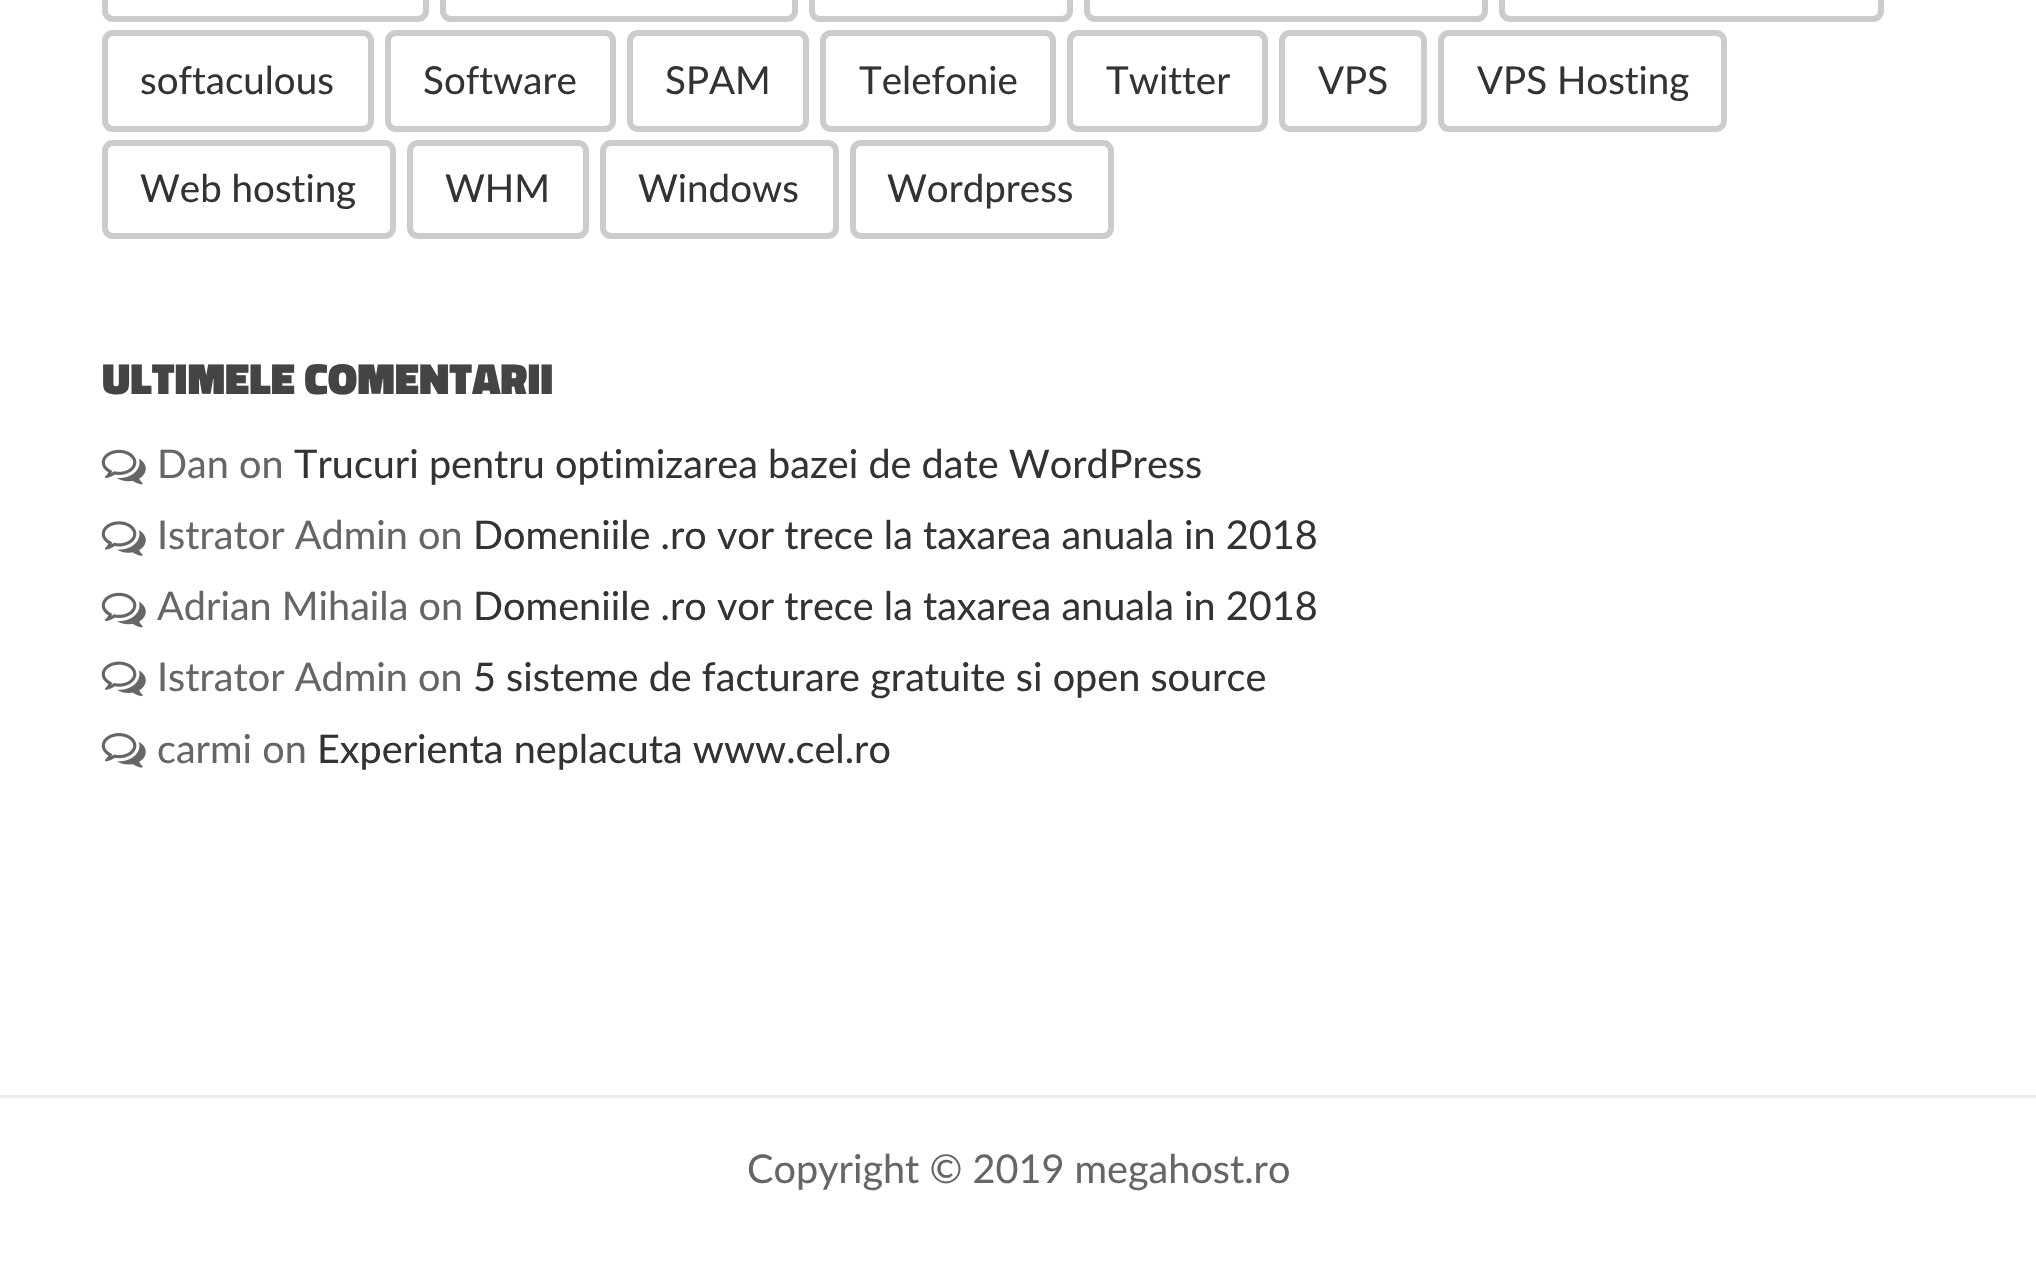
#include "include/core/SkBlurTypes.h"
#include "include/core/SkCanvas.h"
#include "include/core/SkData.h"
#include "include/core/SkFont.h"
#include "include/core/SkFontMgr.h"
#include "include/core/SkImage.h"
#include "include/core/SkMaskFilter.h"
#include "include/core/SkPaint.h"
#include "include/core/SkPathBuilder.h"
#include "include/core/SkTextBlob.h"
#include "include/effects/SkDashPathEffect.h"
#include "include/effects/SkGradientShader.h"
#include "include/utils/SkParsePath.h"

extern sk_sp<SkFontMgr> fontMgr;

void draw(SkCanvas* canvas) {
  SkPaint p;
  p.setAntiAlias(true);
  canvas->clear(SK_ColorWHITE);
  p.setStyle(SkPaint::kStroke_Style);
  p.setStrokeWidth(6);
  p.setColor(SkColorSetRGB(204, 204, 204));
  canvas->drawRoundRect(SkRect::MakeLTRB(105, -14, 426, 19), 8, 8, p);
  canvas->drawRoundRect(SkRect::MakeLTRB(443, -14, 795, 19), 8, 8, p);
  canvas->drawRoundRect(SkRect::MakeLTRB(812, -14, 1070, 19), 8, 8, p);
  canvas->drawRoundRect(SkRect::MakeLTRB(1087, -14, 1485, 19), 8, 8, p);
  canvas->drawRoundRect(SkRect::MakeLTRB(1502, -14, 1881, 19), 8, 8, p);
  canvas->drawRoundRect(SkRect::MakeLTRB(105, 33, 371, 129), 8, 8, p);
  canvas->drawRoundRect(SkRect::MakeLTRB(388, 33, 613, 129), 8, 8, p);
  canvas->drawRoundRect(SkRect::MakeLTRB(630, 33, 806, 129), 8, 8, p);
  canvas->drawRoundRect(SkRect::MakeLTRB(823, 33, 1053, 129), 8, 8, p);
  canvas->drawRoundRect(SkRect::MakeLTRB(1070, 33, 1265, 129), 8, 8, p);
  canvas->drawRoundRect(SkRect::MakeLTRB(1282, 33, 1424, 129), 8, 8, p);
  canvas->drawRoundRect(SkRect::MakeLTRB(1441, 33, 1724, 129), 8, 8, p);
  canvas->drawRoundRect(SkRect::MakeLTRB(105, 143, 393, 236), 8, 8, p);
  canvas->drawRoundRect(SkRect::MakeLTRB(410, 143, 586, 236), 8, 8, p);
  canvas->drawRoundRect(SkRect::MakeLTRB(603, 143, 836, 236), 8, 8, p);
  canvas->drawRoundRect(SkRect::MakeLTRB(853, 143, 1111, 236), 8, 8, p);
  canvas->drawImageRect(SkImages::DeferredFromEncodedData(SkData::MakeFromFileName("images/1.png")), SkRect::MakeLTRB(101, 449, 146, 485), SkSamplingOptions());
  canvas->drawImageRect(SkImages::DeferredFromEncodedData(SkData::MakeFromFileName("images/2.png")), SkRect::MakeLTRB(101, 521, 146, 556), SkSamplingOptions());
  canvas->drawImageRect(SkImages::DeferredFromEncodedData(SkData::MakeFromFileName("images/1.png")), SkRect::MakeLTRB(101, 592, 146, 628), SkSamplingOptions());
  canvas->drawImageRect(SkImages::DeferredFromEncodedData(SkData::MakeFromFileName("images/3.png")), SkRect::MakeLTRB(101, 661, 146, 697), SkSamplingOptions());
  canvas->drawImageRect(SkImages::DeferredFromEncodedData(SkData::MakeFromFileName("images/4.png")), SkRect::MakeLTRB(101, 733, 146, 768), SkSamplingOptions());
  p.setStyle(SkPaint::kFill_Style);
  p.setColor(SkColorSetRGB(238, 238, 238));
  canvas->drawRect(SkRect::MakeLTRB(0, 1095, 2036, 1098), p);
  SkFont font1(fontMgr->matchFamilyStyle("Lato", SkFontStyle::Normal()), 38.5f);
  font1.setSubpixel(true);
  p.setColor(SkColorSetRGB(51, 51, 51));
  canvas->drawString("softaculous", 140, 94, font1, p);
  canvas->drawString("Software", 423, 94, font1, p);
  canvas->drawString("SPAM", 665, 94, font1, p);
  canvas->drawString("Telefonie", 859, 94, font1, p);
  canvas->drawString("Twitter", 1106, 94, font1, p);
  canvas->drawString("VPS", 1318, 94, font1, p);
  canvas->drawString("VPS Hosting", 1477, 94, font1, p);
  canvas->drawString("Web hosting", 140, 202, font1, p);
  canvas->drawString("WHM", 445, 202, font1, p);
  canvas->drawString("Windows", 638, 202, font1, p);
  canvas->drawString("Wordpress", 887, 202, font1, p);
  SkFont font2(fontMgr->matchFamilyStyle("Titillium Web", SkFontStyle(900, SkFontStyle::kNormal_Width, SkFontStyle::kUpright_Slant)), 44);
  font2.setSubpixel(true);
  p.setColor(SkColorSetRGB(68, 68, 68));
  canvas->drawString("ULTIMELE COMENTARII", 102, 394, font2, p);
  SkFont font3(fontMgr->matchFamilyStyle("Lato", SkFontStyle::Normal()), 39.6f);
  font3.setSubpixel(true);
  p.setColor(SkColorSetRGB(102, 102, 102));
  canvas->drawString("Dan on", 157, 478, font3, p);
  p.setColor(SkColorSetRGB(51, 51, 51));
  canvas->drawString("Trucuri pentru optimizarea bazei de date WordPress", 294, 478, font3, p);
  p.setColor(SkColorSetRGB(102, 102, 102));
  canvas->drawString("Istrator Admin on", 157, 549, font3, p);
  p.setColor(SkColorSetRGB(51, 51, 51));
  canvas->drawString("Domeniile .ro vor trece la taxarea anuala in 2018", 473, 549, font3, p);
  p.setColor(SkColorSetRGB(102, 102, 102));
  canvas->drawString("Adrian Mihaila on", 157, 620, font3, p);
  p.setColor(SkColorSetRGB(51, 51, 51));
  canvas->drawString("Domeniile .ro vor trece la taxarea anuala in 2018", 473, 620, font3, p);
  p.setColor(SkColorSetRGB(102, 102, 102));
  canvas->drawString("Istrator Admin on", 157, 691, font3, p);
  p.setColor(SkColorSetRGB(51, 51, 51));
  canvas->drawString("5 sisteme de facturare gratuite si open source", 473, 691, font3, p);
  p.setColor(SkColorSetRGB(102, 102, 102));
  canvas->drawString("carmi on", 157, 763, font3, p);
  p.setColor(SkColorSetRGB(51, 51, 51));
  canvas->drawString("Experienta neplacuta www.cel.ro", 317, 763, font3, p);
  p.setColor(SkColorSetRGB(102, 102, 102));
  canvas->drawString("Copyright © 2019 megahost.ro", 747, 1183, font3, p);
}
